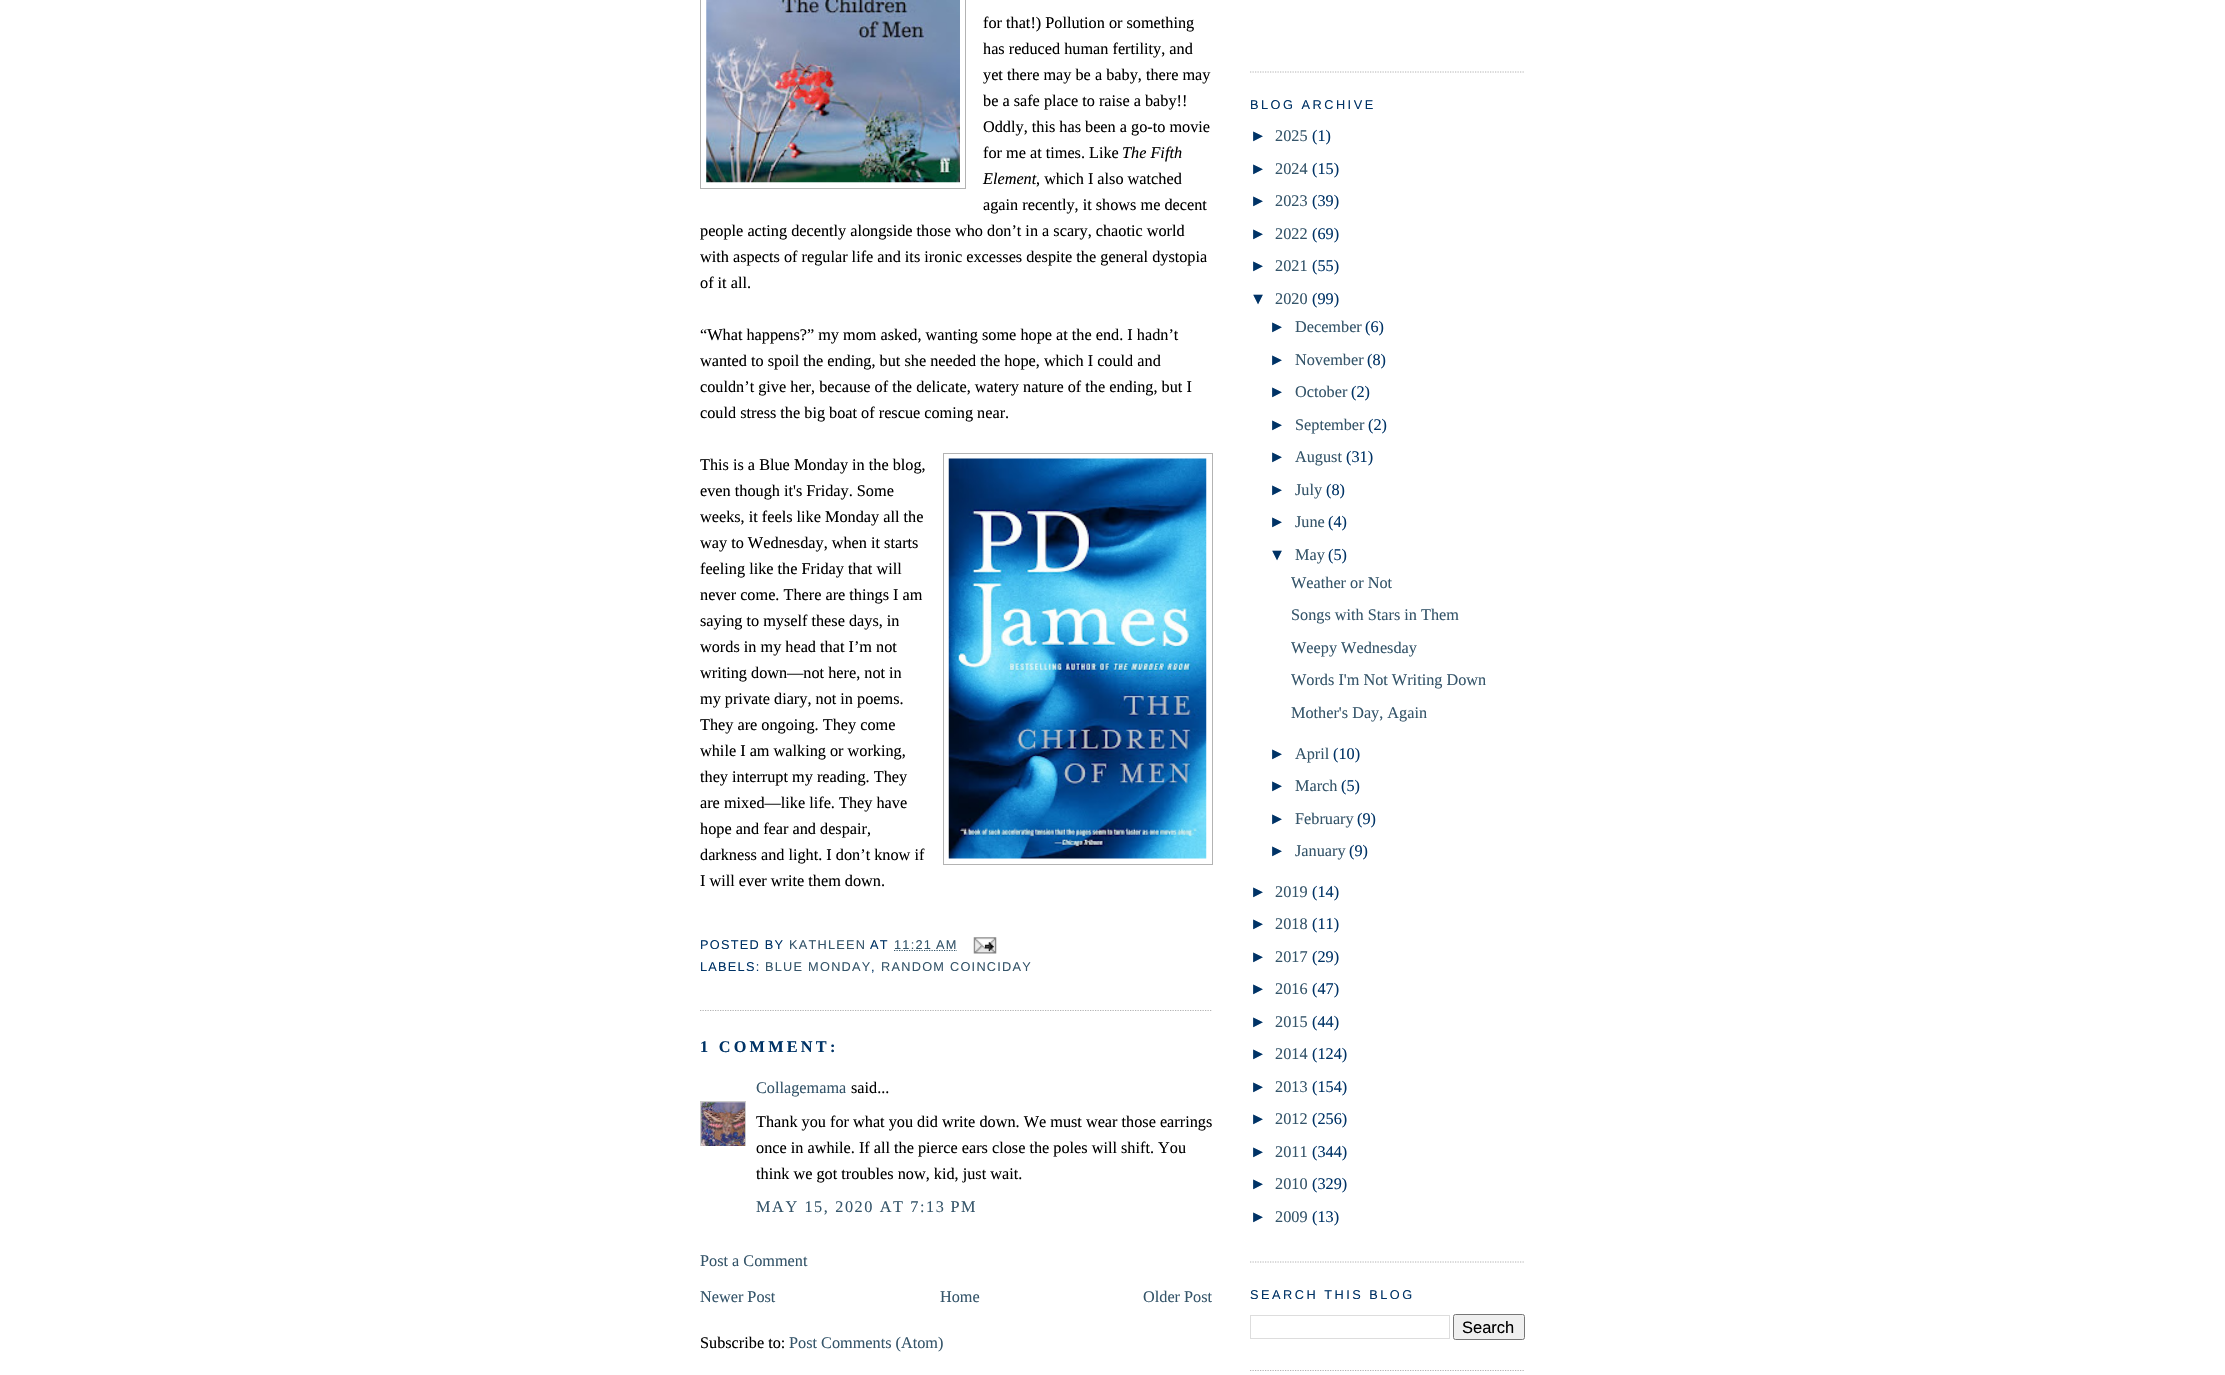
#include "include/core/SkBlurTypes.h"
#include "include/core/SkCanvas.h"
#include "include/core/SkData.h"
#include "include/core/SkFont.h"
#include "include/core/SkFontMgr.h"
#include "include/core/SkImage.h"
#include "include/core/SkMaskFilter.h"
#include "include/core/SkPaint.h"
#include "include/core/SkPathBuilder.h"
#include "include/core/SkTextBlob.h"
#include "include/effects/SkDashPathEffect.h"
#include "include/effects/SkGradientShader.h"
#include "include/utils/SkParsePath.h"

extern sk_sp<SkFontMgr> fontMgr;

void draw(SkCanvas* canvas) {
  SkPaint p;
  p.setAntiAlias(true);
  auto spacedText = [&](const char* s, float x, float y, const SkFont& font, const SkPaint& ink, float letter, float word) {
    std::vector<SkGlyphID> glyphs(font.countText(s, strlen(s), SkTextEncoding::kUTF8));
    std::vector<float> xs(glyphs.size());
    font.textToGlyphs(s, strlen(s), SkTextEncoding::kUTF8, glyphs);
    font.getXPos(glyphs, xs, x);
    float extra = 0;
    for (size_t i = 0; i < glyphs.size(); i++) {
      xs[i] += extra;
      extra += letter + word * (glyphs[i] == font.unicharToGlyph(' '));
    }
    canvas->drawTextBlob(SkTextBlob::MakeFromPosHGlyphs(glyphs, xs, y, font), 0, 0, ink);
  };
  canvas->clear(SK_ColorWHITE);
  p.setStyle(SkPaint::kStroke_Style);
  p.setStrokeWidth(1.2f);
  p.setColor(SkColorSetRGB(179, 179, 179));
  p.setPathEffect(SkDashPathEffect::Make({{1.25f, 1.25f}}, 0));
  canvas->drawPath(SkPathBuilder().moveTo(700, 1010.5f).lineTo(1212.5f, 1010.5f).detach(), p);
  p.setPathEffect(nullptr);
  p.setStrokeWidth(1);
  canvas->drawRect(SkRect::MakeLTRB(700.5f, -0.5f, 965.5f, 188.5f), p);
  canvas->drawImageRect(SkImages::DeferredFromEncodedData(SkData::MakeFromFileName("images/1.png")), SkRect::MakeLTRB(706, 0, 960, 183), SkSamplingOptions());
  canvas->drawRect(SkRect::MakeLTRB(943.5f, 453.5f, 1212.5f, 864.5f), p);
  canvas->drawImageRect(SkImages::DeferredFromEncodedData(SkData::MakeFromFileName("images/2.png")), SkRect::MakeLTRB(948, 458, 1207, 859), SkSamplingOptions());
  p.setStrokeWidth(1.2f);
  p.setColor(SkColorSetRGB(53, 85, 106));
  p.setPathEffect(SkDashPathEffect::Make({{1.25f, 1.25f}}, 0));
  canvas->drawPath(SkPathBuilder().moveTo(894, 950.5f).lineTo(957, 950.5f).detach(), p);
  p.setPathEffect(nullptr);
  canvas->drawImageRect(SkImages::DeferredFromEncodedData(SkData::MakeFromFileName("images/3.png")), SkRect::MakeLTRB(973, 937, 997, 954), SkSamplingOptions());
  canvas->save();
  canvas->clipRect(SkRect::MakeLTRB(700, 1101, 746, 1146));
  p.setStrokeWidth(1);
  p.setColor(SkColorSetRGB(204, 204, 204));
  canvas->drawRect(SkRect::MakeLTRB(700.5f, 1101.5f, 745.5f, 1147.5f), p);
  canvas->restore();
  canvas->drawImageRect(SkImages::DeferredFromEncodedData(SkData::MakeFromFileName("images/4.png")), SkRect::MakeLTRB(701, 1102, 745, 1146), SkSamplingOptions());
  p.setStrokeWidth(1.2f);
  p.setColor(SkColorSetRGB(179, 179, 179));
  p.setPathEffect(SkDashPathEffect::Make({{1.25f, 1.25f}}, 0));
  canvas->drawPath(SkPathBuilder().moveTo(1250, 72).lineTo(1525, 72).detach(), p);
  p.setPathEffect(nullptr);
  p.setPathEffect(SkDashPathEffect::Make({{1.25f, 1.25f}}, 0));
  canvas->drawPath(SkPathBuilder().moveTo(1250, 1262).lineTo(1525, 1262).detach(), p);
  p.setPathEffect(nullptr);
  p.setPathEffect(SkDashPathEffect::Make({{1.25f, 1.25f}}, 0));
  canvas->drawPath(SkPathBuilder().moveTo(1250, 1370.5f).lineTo(1525, 1370.5f).detach(), p);
  p.setPathEffect(nullptr);
  p.setStrokeWidth(1);
  p.setColor(SkColorSetRGB(221, 221, 221));
  canvas->drawRect(SkRect::MakeLTRB(1250.5f, 1315.5f, 1449.5f, 1338.5f), p);
  p.setStyle(SkPaint::kFill_Style);
  p.setColor(SkColorSetRGB(239, 239, 239));
  canvas->drawRoundRect(SkRect::MakeLTRB(1453.5f, 1314.5f, 1524.5f, 1339.5f), 2, 2, p);
  p.setStyle(SkPaint::kStroke_Style);
  p.setColor(SkColorSetRGB(118, 118, 118));
  canvas->drawRoundRect(SkRect::MakeLTRB(1453.5f, 1314.5f, 1524.5f, 1339.5f), 2, 2, p);
  SkFont font1(fontMgr->matchFamilyStyle("Liberation Serif", SkFontStyle::Normal()), 16.25f);
  font1.setSubpixel(true);
  p.setStyle(SkPaint::kFill_Style);
  p.setColor(SK_ColorBLACK);
  canvas->drawString("for that!) Pollution or something", 983, 28, font1, p);
  canvas->drawString("has reduced human fertility, and", 983, 54, font1, p);
  canvas->drawString("yet there may be a baby, there may", 983, 80, font1, p);
  canvas->drawString("be a safe place to raise a baby!!", 983, 106, font1, p);
  canvas->drawString("Oddly, this has been a go-to movie", 983, 132, font1, p);
  canvas->drawString("for me at times. Like", 983, 158, font1, p);
  SkFont font2(fontMgr->matchFamilyStyle("Liberation Serif", SkFontStyle::Italic()), 16.25f);
  font2.setSubpixel(true);
  canvas->drawString("The Fifth", 1122, 158, font2, p);
  canvas->drawString("Element", 983, 184, font2, p);
  canvas->drawString(", which I also watched", 1036, 184, font1, p);
  canvas->drawString("again recently, it shows me decent", 983, 210, font1, p);
  canvas->drawString("people acting decently alongside those who don’t in a scary, chaotic world", 700, 236, font1, p);
  canvas->drawString("with aspects of regular life and its ironic excesses despite the general dystopia", 700, 262, font1, p);
  canvas->drawString("of it all.", 700, 288, font1, p);
  canvas->drawString("“What happens?” my mom asked, wanting some hope at the end. I hadn’t", 700, 340, font1, p);
  canvas->drawString("wanted to spoil the ending, but she needed the hope, which I could and", 700, 366, font1, p);
  canvas->drawString("couldn’t give her, because of the delicate, watery nature of the ending, but I", 700, 392, font1, p);
  canvas->drawString("could stress the big boat of rescue coming near.", 700, 418, font1, p);
  canvas->drawString("This is a Blue Monday in the blog,", 700, 470, font1, p);
  canvas->drawString("even though it's Friday. Some", 700, 496, font1, p);
  canvas->drawString("weeks, it feels like Monday all the", 700, 522, font1, p);
  canvas->drawString("way to Wednesday, when it starts", 700, 548, font1, p);
  canvas->drawString("feeling like the Friday that will", 700, 574, font1, p);
  canvas->drawString("never come. There are things I am", 700, 600, font1, p);
  canvas->drawString("saying to myself these days, in", 700, 626, font1, p);
  canvas->drawString("words in my head that I’m not", 700, 652, font1, p);
  canvas->drawString("writing down—not here, not in", 700, 678, font1, p);
  canvas->drawString("my private diary, not in poems.", 700, 704, font1, p);
  canvas->drawString("They are ongoing. They come", 700, 730, font1, p);
  canvas->drawString("while I am walking or working,", 700, 756, font1, p);
  canvas->drawString("they interrupt my reading. They", 700, 782, font1, p);
  canvas->drawString("are mixed—like life. They have", 700, 808, font1, p);
  canvas->drawString("hope and fear and despair,", 700, 834, font1, p);
  canvas->drawString("darkness and light. I don’t know if", 700, 860, font1, p);
  canvas->drawString("I will ever write them down.", 700, 886, font1, p);
  SkFont font3(fontMgr->matchFamilyStyle("Liberation Sans", SkFontStyle::Normal()), 12.75f);
  font3.setSubpixel(true);
  p.setColor(SkColorSetRGB(0, 51, 102));
  spacedText("POSTED BY", 700, 949, font3, p, 1.25f, 0);
  p.setColor(SkColorSetRGB(53, 85, 106));
  spacedText("KATHLEEN", 789, 949, font3, p, 1.25f, 0);
  p.setColor(SkColorSetRGB(0, 51, 102));
  spacedText("AT", 870, 949, font3, p, 1.25f, 0);
  p.setColor(SkColorSetRGB(53, 85, 106));
  spacedText("11:21 AM", 894, 949, font3, p, 1.25f, 0);
  p.setColor(SkColorSetRGB(0, 51, 102));
  spacedText("LABELS:", 700, 971, font3, p, 1.25f, 0);
  p.setColor(SkColorSetRGB(53, 85, 106));
  spacedText("BLUE MONDAY", 765, 971, font3, p, 1.25f, 0);
  p.setColor(SkColorSetRGB(0, 51, 102));
  spacedText(",", 871, 971, font3, p, 1.25f, 0);
  p.setColor(SkColorSetRGB(53, 85, 106));
  spacedText("RANDOM COINCIDAY", 881, 971, font3, p, 1.25f, 0);
  SkFont font4(fontMgr->matchFamilyStyle("Liberation Serif", SkFontStyle::Bold()), 16.25f);
  font4.setSubpixel(true);
  p.setColor(SkColorSetRGB(0, 51, 102));
  spacedText("1 COMMENT:", 700, 1052, font4, p, 3.25f, 0);
  p.setColor(SkColorSetRGB(53, 85, 106));
  canvas->drawString("Collagemama", 756, 1093, font1, p);
  p.setColor(SK_ColorBLACK);
  canvas->drawString("said...", 851, 1093, font1, p);
  canvas->drawString("Thank you for what you did write down. We must wear those earrings", 756, 1127, font1, p);
  canvas->drawString("once in awhile. If all the pierce ears close the poles will shift. You", 756, 1153, font1, p);
  canvas->drawString("think we got troubles now, kid, just wait.", 756, 1179, font1, p);
  p.setColor(SkColorSetRGB(53, 85, 106));
  spacedText("MAY 15, 2020 AT 7:13 PM", 756, 1212, font1, p, 1.6f, 0);
  canvas->drawString("Post a Comment", 700, 1266, font1, p);
  canvas->drawString("Newer Post", 700, 1302, font1, p);
  canvas->drawString("Home", 940, 1302, font1, p);
  canvas->drawString("Older Post", 1143, 1302, font1, p);
  p.setColor(SK_ColorBLACK);
  canvas->drawString("Subscribe to:", 700, 1348, font1, p);
  p.setColor(SkColorSetRGB(53, 85, 106));
  canvas->drawString("Post Comments (Atom)", 789, 1348, font1, p);
  p.setColor(SkColorSetRGB(0, 51, 102));
  spacedText("BLOG ARCHIVE", 1250, 109, font3, p, 2.5f, 0);
  SkFont font5(fontMgr->matchFamilyStyle("Liberation Sans", SkFontStyle::Normal()), 16.25f);
  font5.setSubpixel(true);
  canvas->drawString("►", 1250, 141, font5, p);
  p.setColor(SkColorSetRGB(53, 85, 106));
  canvas->drawString("2025", 1275, 141, font1, p);
  p.setColor(SkColorSetRGB(0, 51, 102));
  canvas->drawString("(1)", 1312, 141, font1, p);
  canvas->drawString("►", 1250, 174, font5, p);
  p.setColor(SkColorSetRGB(53, 85, 106));
  canvas->drawString("2024", 1275, 174, font1, p);
  p.setColor(SkColorSetRGB(0, 51, 102));
  canvas->drawString("(15)", 1312, 174, font1, p);
  canvas->drawString("►", 1250, 206, font5, p);
  p.setColor(SkColorSetRGB(53, 85, 106));
  canvas->drawString("2023", 1275, 206, font1, p);
  p.setColor(SkColorSetRGB(0, 51, 102));
  canvas->drawString("(39)", 1312, 206, font1, p);
  canvas->drawString("►", 1250, 239, font5, p);
  p.setColor(SkColorSetRGB(53, 85, 106));
  canvas->drawString("2022", 1275, 239, font1, p);
  p.setColor(SkColorSetRGB(0, 51, 102));
  canvas->drawString("(69)", 1312, 239, font1, p);
  canvas->drawString("►", 1250, 271, font5, p);
  p.setColor(SkColorSetRGB(53, 85, 106));
  canvas->drawString("2021", 1275, 271, font1, p);
  p.setColor(SkColorSetRGB(0, 51, 102));
  canvas->drawString("(55)", 1312, 271, font1, p);
  canvas->drawString("▼", 1250, 304, font5, p);
  p.setColor(SkColorSetRGB(53, 85, 106));
  canvas->drawString("2020", 1275, 304, font1, p);
  p.setColor(SkColorSetRGB(0, 51, 102));
  canvas->drawString("(99)", 1312, 304, font1, p);
  canvas->drawString("►", 1269, 332, font5, p);
  p.setColor(SkColorSetRGB(53, 85, 106));
  canvas->drawString("December", 1295, 332, font1, p);
  p.setColor(SkColorSetRGB(0, 51, 102));
  canvas->drawString("(6)", 1365, 332, font1, p);
  canvas->drawString("►", 1269, 365, font5, p);
  p.setColor(SkColorSetRGB(53, 85, 106));
  canvas->drawString("November", 1295, 365, font1, p);
  p.setColor(SkColorSetRGB(0, 51, 102));
  canvas->drawString("(8)", 1367, 365, font1, p);
  canvas->drawString("►", 1269, 397, font5, p);
  p.setColor(SkColorSetRGB(53, 85, 106));
  canvas->drawString("October", 1295, 397, font1, p);
  p.setColor(SkColorSetRGB(0, 51, 102));
  canvas->drawString("(2)", 1351, 397, font1, p);
  canvas->drawString("►", 1269, 430, font5, p);
  p.setColor(SkColorSetRGB(53, 85, 106));
  canvas->drawString("September", 1295, 430, font1, p);
  p.setColor(SkColorSetRGB(0, 51, 102));
  canvas->drawString("(2)", 1368, 430, font1, p);
  canvas->drawString("►", 1269, 462, font5, p);
  p.setColor(SkColorSetRGB(53, 85, 106));
  canvas->drawString("August", 1295, 462, font1, p);
  p.setColor(SkColorSetRGB(0, 51, 102));
  canvas->drawString("(31)", 1346, 462, font1, p);
  canvas->drawString("►", 1269, 495, font5, p);
  p.setColor(SkColorSetRGB(53, 85, 106));
  canvas->drawString("July", 1295, 495, font1, p);
  p.setColor(SkColorSetRGB(0, 51, 102));
  canvas->drawString("(8)", 1326, 495, font1, p);
  canvas->drawString("►", 1269, 527, font5, p);
  p.setColor(SkColorSetRGB(53, 85, 106));
  canvas->drawString("June", 1295, 527, font1, p);
  p.setColor(SkColorSetRGB(0, 51, 102));
  canvas->drawString("(4)", 1328, 527, font1, p);
  canvas->drawString("▼", 1269, 560, font5, p);
  p.setColor(SkColorSetRGB(53, 85, 106));
  canvas->drawString("May", 1295, 560, font1, p);
  p.setColor(SkColorSetRGB(0, 51, 102));
  canvas->drawString("(5)", 1328, 560, font1, p);
  p.setColor(SkColorSetRGB(53, 85, 106));
  canvas->drawString("Weather or Not", 1291, 588, font1, p);
  canvas->drawString("Songs with Stars in Them", 1291, 620, font1, p);
  canvas->drawString("Weepy Wednesday", 1291, 653, font1, p);
  canvas->drawString("Words I'm Not Writing Down", 1291, 685, font1, p);
  canvas->drawString("Mother's Day, Again", 1291, 718, font1, p);
  p.setColor(SkColorSetRGB(0, 51, 102));
  canvas->drawString("►", 1269, 759, font5, p);
  p.setColor(SkColorSetRGB(53, 85, 106));
  canvas->drawString("April", 1295, 759, font1, p);
  p.setColor(SkColorSetRGB(0, 51, 102));
  canvas->drawString("(10)", 1333, 759, font1, p);
  canvas->drawString("►", 1269, 791, font5, p);
  p.setColor(SkColorSetRGB(53, 85, 106));
  canvas->drawString("March", 1295, 791, font1, p);
  p.setColor(SkColorSetRGB(0, 51, 102));
  canvas->drawString("(5)", 1341, 791, font1, p);
  canvas->drawString("►", 1269, 824, font5, p);
  p.setColor(SkColorSetRGB(53, 85, 106));
  canvas->drawString("February", 1295, 824, font1, p);
  p.setColor(SkColorSetRGB(0, 51, 102));
  canvas->drawString("(9)", 1357, 824, font1, p);
  canvas->drawString("►", 1269, 856, font5, p);
  p.setColor(SkColorSetRGB(53, 85, 106));
  canvas->drawString("January", 1295, 856, font1, p);
  p.setColor(SkColorSetRGB(0, 51, 102));
  canvas->drawString("(9)", 1349, 856, font1, p);
  canvas->drawString("►", 1250, 897, font5, p);
  p.setColor(SkColorSetRGB(53, 85, 106));
  canvas->drawString("2019", 1275, 897, font1, p);
  p.setColor(SkColorSetRGB(0, 51, 102));
  canvas->drawString("(14)", 1312, 897, font1, p);
  canvas->drawString("►", 1250, 929, font5, p);
  p.setColor(SkColorSetRGB(53, 85, 106));
  canvas->drawString("2018", 1275, 929, font1, p);
  p.setColor(SkColorSetRGB(0, 51, 102));
  canvas->drawString("(11)", 1312, 929, font1, p);
  canvas->drawString("►", 1250, 962, font5, p);
  p.setColor(SkColorSetRGB(53, 85, 106));
  canvas->drawString("2017", 1275, 962, font1, p);
  p.setColor(SkColorSetRGB(0, 51, 102));
  canvas->drawString("(29)", 1312, 962, font1, p);
  canvas->drawString("►", 1250, 994, font5, p);
  p.setColor(SkColorSetRGB(53, 85, 106));
  canvas->drawString("2016", 1275, 994, font1, p);
  p.setColor(SkColorSetRGB(0, 51, 102));
  canvas->drawString("(47)", 1312, 994, font1, p);
  canvas->drawString("►", 1250, 1027, font5, p);
  p.setColor(SkColorSetRGB(53, 85, 106));
  canvas->drawString("2015", 1275, 1027, font1, p);
  p.setColor(SkColorSetRGB(0, 51, 102));
  canvas->drawString("(44)", 1312, 1027, font1, p);
  canvas->drawString("►", 1250, 1059, font5, p);
  p.setColor(SkColorSetRGB(53, 85, 106));
  canvas->drawString("2014", 1275, 1059, font1, p);
  p.setColor(SkColorSetRGB(0, 51, 102));
  canvas->drawString("(124)", 1312, 1059, font1, p);
  canvas->drawString("►", 1250, 1092, font5, p);
  p.setColor(SkColorSetRGB(53, 85, 106));
  canvas->drawString("2013", 1275, 1092, font1, p);
  p.setColor(SkColorSetRGB(0, 51, 102));
  canvas->drawString("(154)", 1312, 1092, font1, p);
  canvas->drawString("►", 1250, 1124, font5, p);
  p.setColor(SkColorSetRGB(53, 85, 106));
  canvas->drawString("2012", 1275, 1124, font1, p);
  p.setColor(SkColorSetRGB(0, 51, 102));
  canvas->drawString("(256)", 1312, 1124, font1, p);
  canvas->drawString("►", 1250, 1157, font5, p);
  p.setColor(SkColorSetRGB(53, 85, 106));
  canvas->drawString("2011", 1275, 1157, font1, p);
  p.setColor(SkColorSetRGB(0, 51, 102));
  canvas->drawString("(344)", 1312, 1157, font1, p);
  canvas->drawString("►", 1250, 1189, font5, p);
  p.setColor(SkColorSetRGB(53, 85, 106));
  canvas->drawString("2010", 1275, 1189, font1, p);
  p.setColor(SkColorSetRGB(0, 51, 102));
  canvas->drawString("(329)", 1312, 1189, font1, p);
  canvas->drawString("►", 1250, 1222, font5, p);
  p.setColor(SkColorSetRGB(53, 85, 106));
  canvas->drawString("2009", 1275, 1222, font1, p);
  p.setColor(SkColorSetRGB(0, 51, 102));
  canvas->drawString("(13)", 1312, 1222, font1, p);
  spacedText("SEARCH THIS BLOG", 1250, 1299, font3, p, 2.5f, 0);
  SkFont font6(fontMgr->matchFamilyStyle("Liberation Sans", SkFontStyle::Normal()), 16.5f);
  font6.setSubpixel(true);
  p.setColor(SK_ColorBLACK);
  canvas->drawString("Search", 1462, 1333, font6, p);
}
